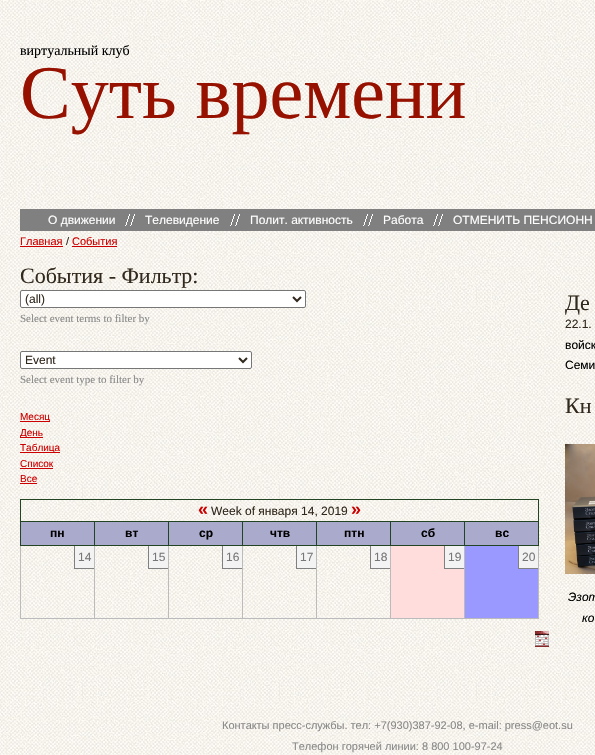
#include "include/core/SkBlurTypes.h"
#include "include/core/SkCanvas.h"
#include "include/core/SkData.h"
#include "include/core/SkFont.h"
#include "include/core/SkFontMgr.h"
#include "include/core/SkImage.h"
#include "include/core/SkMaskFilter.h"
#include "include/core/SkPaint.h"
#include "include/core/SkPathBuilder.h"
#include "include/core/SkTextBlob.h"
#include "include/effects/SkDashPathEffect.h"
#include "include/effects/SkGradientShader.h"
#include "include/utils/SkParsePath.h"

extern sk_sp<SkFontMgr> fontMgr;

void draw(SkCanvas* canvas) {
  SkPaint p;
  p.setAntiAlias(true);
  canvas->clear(SK_ColorWHITE);
  canvas->drawImageRect(SkImages::DeferredFromEncodedData(SkData::MakeFromFileName("images/1.png")), SkRect::MakeLTRB(0, 0, 595, 755), SkSamplingOptions());
  p.setColor(SkColorSetRGB(128, 128, 128));
  canvas->drawRect(SkRect::MakeLTRB(20, 209, 595, 231), p);
  canvas->drawImageRect(SkImages::DeferredFromEncodedData(SkData::MakeFromFileName("images/2.png")), SkRect::MakeLTRB(125, 214, 135, 226), SkSamplingOptions());
  canvas->drawImageRect(SkImages::DeferredFromEncodedData(SkData::MakeFromFileName("images/2.png")), SkRect::MakeLTRB(230, 214, 240, 226), SkSamplingOptions());
  canvas->drawImageRect(SkImages::DeferredFromEncodedData(SkData::MakeFromFileName("images/2.png")), SkRect::MakeLTRB(363, 214, 373, 226), SkSamplingOptions());
  canvas->drawImageRect(SkImages::DeferredFromEncodedData(SkData::MakeFromFileName("images/2.png")), SkRect::MakeLTRB(433, 214, 443, 226), SkSamplingOptions());
  p.setColor(SkColorSetRGB(204, 0, 0));
  canvas->drawRect(SkRect::MakeLTRB(20, 246, 63, 247), p);
  canvas->drawRect(SkRect::MakeLTRB(72, 246, 117, 247), p);
  p.setColor(SK_ColorWHITE);
  canvas->drawRoundRect(SkRect::MakeLTRB(20.5f, 290.5f, 305.5f, 307.5f), 1.5f, 1.5f, p);
  p.setStyle(SkPaint::kStroke_Style);
  p.setStrokeWidth(1);
  p.setColor(SkColorSetRGB(118, 118, 118));
  canvas->drawRoundRect(SkRect::MakeLTRB(20.5f, 290.5f, 305.5f, 307.5f), 1.5f, 1.5f, p);
  p.setStrokeWidth(2);
  p.setColor(SkColorSetRGB(50, 41, 30));
  canvas->drawPath(SkPathBuilder().moveTo(293, 297).lineTo(297, 301).lineTo(301, 297).detach(), p);
  p.setStyle(SkPaint::kFill_Style);
  p.setColor(SK_ColorWHITE);
  canvas->drawRoundRect(SkRect::MakeLTRB(20.5f, 351.5f, 251.5f, 368.5f), 1.5f, 1.5f, p);
  p.setStyle(SkPaint::kStroke_Style);
  p.setStrokeWidth(1);
  p.setColor(SkColorSetRGB(118, 118, 118));
  canvas->drawRoundRect(SkRect::MakeLTRB(20.5f, 351.5f, 251.5f, 368.5f), 1.5f, 1.5f, p);
  p.setStrokeWidth(2);
  p.setColor(SkColorSetRGB(50, 41, 30));
  canvas->drawPath(SkPathBuilder().moveTo(239, 358).lineTo(243, 362).lineTo(247, 358).detach(), p);
  p.setStyle(SkPaint::kFill_Style);
  p.setColor(SkColorSetRGB(204, 0, 0));
  canvas->drawRect(SkRect::MakeLTRB(20, 421, 50, 422), p);
  canvas->drawRect(SkRect::MakeLTRB(20, 437, 43, 438), p);
  canvas->drawRect(SkRect::MakeLTRB(20, 452, 60, 453), p);
  canvas->drawRect(SkRect::MakeLTRB(20, 468, 53, 469), p);
  canvas->drawRect(SkRect::MakeLTRB(20, 483, 37, 484), p);
  p.setColor(SkColorSetRGB(34, 68, 34));
  canvas->drawRect(SkRect::MakeLTRB(20, 499, 539, 500), p);
  canvas->drawRect(SkRect::MakeLTRB(538, 499, 539, 521), p);
  canvas->drawRect(SkRect::MakeLTRB(20, 499, 21, 545), p);
  p.setColor(SkColorSetRGB(170, 170, 204));
  canvas->drawRect(SkRect::MakeLTRB(21, 522, 94, 545), p);
  p.setColor(SkColorSetRGB(34, 68, 34));
  canvas->drawRect(SkRect::MakeLTRB(464, 521, 539, 522), p);
  p.setColor(SkColorSetRGB(187, 187, 187));
  canvas->drawRect(SkRect::MakeLTRB(538, 545, 539, 619), p);
  p.setColor(SkColorSetRGB(34, 68, 34));
  canvas->drawRect(SkRect::MakeLTRB(538, 521, 539, 546), p);
  p.setColor(SkColorSetRGB(187, 187, 187));
  canvas->drawRect(SkRect::MakeLTRB(464, 618, 539, 619), p);
  canvas->drawRect(SkRect::MakeLTRB(464, 545, 465, 619), p);
  p.setColor(SkColorSetRGB(34, 68, 34));
  canvas->drawRect(SkRect::MakeLTRB(464, 545, 539, 546), p);
  canvas->drawRect(SkRect::MakeLTRB(464, 521, 465, 546), p);
  canvas->drawRect(SkRect::MakeLTRB(390, 521, 465, 522), p);
  p.setColor(SkColorSetRGB(187, 187, 187));
  canvas->drawRect(SkRect::MakeLTRB(390, 618, 465, 619), p);
  canvas->drawRect(SkRect::MakeLTRB(390, 545, 391, 619), p);
  p.setColor(SkColorSetRGB(34, 68, 34));
  canvas->drawRect(SkRect::MakeLTRB(390, 545, 465, 546), p);
  canvas->drawRect(SkRect::MakeLTRB(390, 521, 391, 546), p);
  canvas->drawRect(SkRect::MakeLTRB(316, 521, 391, 522), p);
  p.setColor(SkColorSetRGB(187, 187, 187));
  canvas->drawRect(SkRect::MakeLTRB(316, 618, 391, 619), p);
  canvas->drawRect(SkRect::MakeLTRB(316, 545, 317, 619), p);
  p.setColor(SkColorSetRGB(34, 68, 34));
  canvas->drawRect(SkRect::MakeLTRB(316, 545, 391, 546), p);
  canvas->drawRect(SkRect::MakeLTRB(316, 521, 317, 546), p);
  canvas->drawRect(SkRect::MakeLTRB(242, 521, 317, 522), p);
  p.setColor(SkColorSetRGB(187, 187, 187));
  canvas->drawRect(SkRect::MakeLTRB(242, 618, 317, 619), p);
  canvas->drawRect(SkRect::MakeLTRB(242, 545, 243, 619), p);
  p.setColor(SkColorSetRGB(34, 68, 34));
  canvas->drawRect(SkRect::MakeLTRB(242, 545, 317, 546), p);
  canvas->drawRect(SkRect::MakeLTRB(242, 521, 243, 546), p);
  canvas->drawRect(SkRect::MakeLTRB(168, 521, 243, 522), p);
  p.setColor(SkColorSetRGB(187, 187, 187));
  canvas->drawRect(SkRect::MakeLTRB(168, 618, 243, 619), p);
  canvas->drawRect(SkRect::MakeLTRB(168, 545, 169, 619), p);
  p.setColor(SkColorSetRGB(34, 68, 34));
  canvas->drawRect(SkRect::MakeLTRB(168, 545, 243, 546), p);
  canvas->drawRect(SkRect::MakeLTRB(168, 521, 169, 546), p);
  canvas->drawRect(SkRect::MakeLTRB(94, 521, 169, 522), p);
  p.setColor(SkColorSetRGB(187, 187, 187));
  canvas->drawRect(SkRect::MakeLTRB(94, 618, 169, 619), p);
  canvas->drawRect(SkRect::MakeLTRB(94, 545, 95, 619), p);
  p.setColor(SkColorSetRGB(34, 68, 34));
  canvas->drawRect(SkRect::MakeLTRB(94, 545, 169, 546), p);
  canvas->drawRect(SkRect::MakeLTRB(94, 521, 95, 546), p);
  canvas->drawRect(SkRect::MakeLTRB(20, 521, 95, 522), p);
  p.setColor(SkColorSetRGB(187, 187, 187));
  canvas->drawRect(SkRect::MakeLTRB(20, 618, 95, 619), p);
  canvas->drawRect(SkRect::MakeLTRB(20, 545, 21, 619), p);
  p.setColor(SkColorSetRGB(34, 68, 34));
  canvas->drawRect(SkRect::MakeLTRB(20, 545, 95, 546), p);
  p.setColor(SkColorSetRGB(170, 170, 204));
  canvas->drawRect(SkRect::MakeLTRB(95, 522, 168, 545), p);
  canvas->drawRect(SkRect::MakeLTRB(169, 522, 242, 545), p);
  canvas->drawRect(SkRect::MakeLTRB(243, 522, 316, 545), p);
  canvas->drawRect(SkRect::MakeLTRB(317, 522, 390, 545), p);
  canvas->drawRect(SkRect::MakeLTRB(391, 522, 464, 545), p);
  canvas->drawRect(SkRect::MakeLTRB(465, 522, 538, 545), p);
  p.setColor(SkColorSetRGB(243, 243, 243));
  canvas->drawRect(SkRect::MakeLTRB(75, 546, 94, 568), p);
  p.setColor(SkColorSetRGB(128, 128, 128));
  canvas->drawRect(SkRect::MakeLTRB(74, 568, 94, 569), p);
  canvas->drawRect(SkRect::MakeLTRB(74, 546, 75, 569), p);
  p.setColor(SkColorSetRGB(243, 243, 243));
  canvas->drawRect(SkRect::MakeLTRB(149, 546, 168, 568), p);
  p.setColor(SkColorSetRGB(128, 128, 128));
  canvas->drawRect(SkRect::MakeLTRB(148, 568, 168, 569), p);
  canvas->drawRect(SkRect::MakeLTRB(148, 546, 149, 569), p);
  p.setColor(SkColorSetRGB(243, 243, 243));
  canvas->drawRect(SkRect::MakeLTRB(223, 546, 242, 568), p);
  p.setColor(SkColorSetRGB(128, 128, 128));
  canvas->drawRect(SkRect::MakeLTRB(222, 568, 242, 569), p);
  canvas->drawRect(SkRect::MakeLTRB(222, 546, 223, 569), p);
  p.setColor(SkColorSetRGB(243, 243, 243));
  canvas->drawRect(SkRect::MakeLTRB(297, 546, 316, 568), p);
  p.setColor(SkColorSetRGB(128, 128, 128));
  canvas->drawRect(SkRect::MakeLTRB(296, 568, 316, 569), p);
  canvas->drawRect(SkRect::MakeLTRB(296, 546, 297, 569), p);
  p.setColor(SkColorSetRGB(243, 243, 243));
  canvas->drawRect(SkRect::MakeLTRB(371, 546, 390, 568), p);
  p.setColor(SkColorSetRGB(128, 128, 128));
  canvas->drawRect(SkRect::MakeLTRB(370, 568, 390, 569), p);
  canvas->drawRect(SkRect::MakeLTRB(370, 546, 371, 569), p);
  p.setColor(SkColorSetRGB(255, 221, 221));
  canvas->drawRect(SkRect::MakeLTRB(391, 546, 464, 618), p);
  p.setColor(SkColorSetRGB(243, 243, 243));
  canvas->drawRect(SkRect::MakeLTRB(445, 546, 464, 568), p);
  p.setColor(SkColorSetRGB(128, 128, 128));
  canvas->drawRect(SkRect::MakeLTRB(444, 568, 464, 569), p);
  canvas->drawRect(SkRect::MakeLTRB(444, 546, 445, 569), p);
  p.setColor(SkColorSetRGB(153, 153, 255));
  canvas->drawRect(SkRect::MakeLTRB(465, 546, 538, 618), p);
  p.setColor(SkColorSetRGB(243, 243, 243));
  canvas->drawRect(SkRect::MakeLTRB(519, 546, 538, 568), p);
  p.setColor(SkColorSetRGB(128, 128, 128));
  canvas->drawRect(SkRect::MakeLTRB(518, 568, 538, 569), p);
  canvas->drawRect(SkRect::MakeLTRB(518, 546, 519, 569), p);
  canvas->drawImageRect(SkImages::DeferredFromEncodedData(SkData::MakeFromFileName("images/3.png")), SkRect::MakeLTRB(535, 631, 549, 647), SkSamplingOptions());
  canvas->drawImageRect(SkImages::DeferredFromEncodedData(SkData::MakeFromFileName("images/4.png")), SkRect::MakeLTRB(565, 444, 595, 574), SkSamplingOptions());
  SkFont font1(fontMgr->matchFamilyStyle("Liberation Serif", SkFontStyle::Normal()), 14);
  font1.setSubpixel(true);
  p.setColor(SK_ColorBLACK);
  canvas->drawString("виртуальный клуб", 20, 55, font1, p);
  SkFont font2(fontMgr->matchFamilyStyle("Liberation Serif", SkFontStyle::Normal()), 76);
  font2.setSubpixel(true);
  p.setColor(SkColorSetRGB(150, 17, 0));
  canvas->drawString("Суть времени", 20, 118, font2, p);
  SkFont font3(fontMgr->matchFamilyStyle("Liberation Sans", SkFontStyle::Normal()), 12);
  font3.setSubpixel(true);
  p.setColor(SK_ColorWHITE);
  canvas->drawString("О движении", 48, 224, font3, p);
  canvas->drawString("Телевидение", 145, 224, font3, p);
  canvas->drawString("Полит. активность", 250, 224, font3, p);
  canvas->drawString("Работа", 383, 224, font3, p);
  canvas->drawString("ОТМЕНИТЬ ПЕНСИОНН", 453, 224, font3, p);
  SkFont font4(fontMgr->matchFamilyStyle("Liberation Sans", SkFontStyle::Normal()), 11);
  font4.setSubpixel(true);
  p.setColor(SkColorSetRGB(204, 0, 0));
  canvas->drawString("Главная", 20, 245, font4, p);
  p.setColor(SkColorSetRGB(50, 41, 30));
  canvas->drawString("/", 66, 245, font4, p);
  p.setColor(SkColorSetRGB(204, 0, 0));
  canvas->drawString("События", 72, 245, font4, p);
  SkFont font5(fontMgr->matchFamilyStyle("Liberation Serif", SkFontStyle::Normal()), 22);
  font5.setSubpixel(true);
  p.setColor(SkColorSetRGB(50, 41, 30));
  canvas->drawString("События - Фильтр:", 20, 283, font5, p);
  canvas->drawString("(all)", 25, 303, font3, p);
  SkFont font6(fontMgr->matchFamilyStyle("Liberation Serif", SkFontStyle::Normal()), 11);
  font6.setSubpixel(true);
  p.setColor(SkColorSetRGB(137, 137, 137));
  canvas->drawString("Select event terms to filter by", 20, 322, font6, p);
  p.setColor(SkColorSetRGB(50, 41, 30));
  canvas->drawString("Event", 25, 364, font3, p);
  p.setColor(SkColorSetRGB(137, 137, 137));
  canvas->drawString("Select event type to filter by", 20, 383, font6, p);
  SkFont font7(fontMgr->matchFamilyStyle("Liberation Sans", SkFontStyle::Normal()), 10);
  font7.setSubpixel(true);
  p.setColor(SkColorSetRGB(204, 0, 0));
  canvas->drawString("Месяц", 20, 420, font7, p);
  canvas->drawString("День", 20, 436, font7, p);
  canvas->drawString("Таблица", 20, 451, font7, p);
  canvas->drawString("Список", 20, 467, font7, p);
  canvas->drawString("Все", 20, 482, font7, p);
  SkFont font8(fontMgr->matchFamilyStyle("Liberation Sans", SkFontStyle::Bold()), 18);
  font8.setSubpixel(true);
  canvas->drawString("«", 198, 515, font8, p);
  p.setColor(SkColorSetRGB(50, 41, 30));
  canvas->drawString("Week of января 14, 2019", 211, 515, font3, p);
  p.setColor(SkColorSetRGB(204, 0, 0));
  canvas->drawString("»", 351, 515, font8, p);
  SkFont font9(fontMgr->matchFamilyStyle("Liberation Sans", SkFontStyle::Bold()), 12);
  font9.setSubpixel(true);
  p.setColor(SK_ColorBLACK);
  canvas->drawString("пн", 50, 537, font9, p);
  canvas->drawString("вт", 125, 537, font9, p);
  canvas->drawString("ср", 199, 537, font9, p);
  canvas->drawString("чтв", 270, 537, font9, p);
  canvas->drawString("птн", 344, 537, font9, p);
  canvas->drawString("сб", 421, 537, font9, p);
  canvas->drawString("вс", 495, 537, font9, p);
  p.setColor(SkColorSetRGB(119, 119, 119));
  canvas->drawString("14", 78, 561, font3, p);
  canvas->drawString("15", 152, 561, font3, p);
  canvas->drawString("16", 226, 561, font3, p);
  canvas->drawString("17", 300, 561, font3, p);
  canvas->drawString("18", 374, 561, font3, p);
  canvas->drawString("19", 448, 561, font3, p);
  canvas->drawString("20", 522, 561, font3, p);
  p.setColor(SkColorSetRGB(137, 137, 137));
  canvas->drawString("Контакты пресс-службы. тел: +7(930)387-92-08, e-mail: press@eot.su", 222, 729, font4, p);
  canvas->drawString("Телефон горячей линии: 8 800 100-97-24", 292, 750, font4, p);
  p.setColor(SkColorSetRGB(50, 41, 30));
  canvas->drawString("Де", 565, 310, font5, p);
  canvas->drawString("22.1.", 565, 328, font3, p);
  p.setColor(SK_ColorBLACK);
  canvas->drawString("войск", 565, 349, font3, p);
  canvas->drawString("Семи", 565, 369, font3, p);
  p.setColor(SkColorSetRGB(50, 41, 30));
  canvas->drawString("Кн", 565, 413, font5, p);
  SkFont font10(fontMgr->matchFamilyStyle("Liberation Sans", SkFontStyle::Italic()), 12);
  font10.setSubpixel(true);
  p.setColor(SK_ColorBLACK);
  canvas->drawString("Эзот", 568, 601, font10, p);
  canvas->drawString("ко", 582, 622, font10, p);
}
